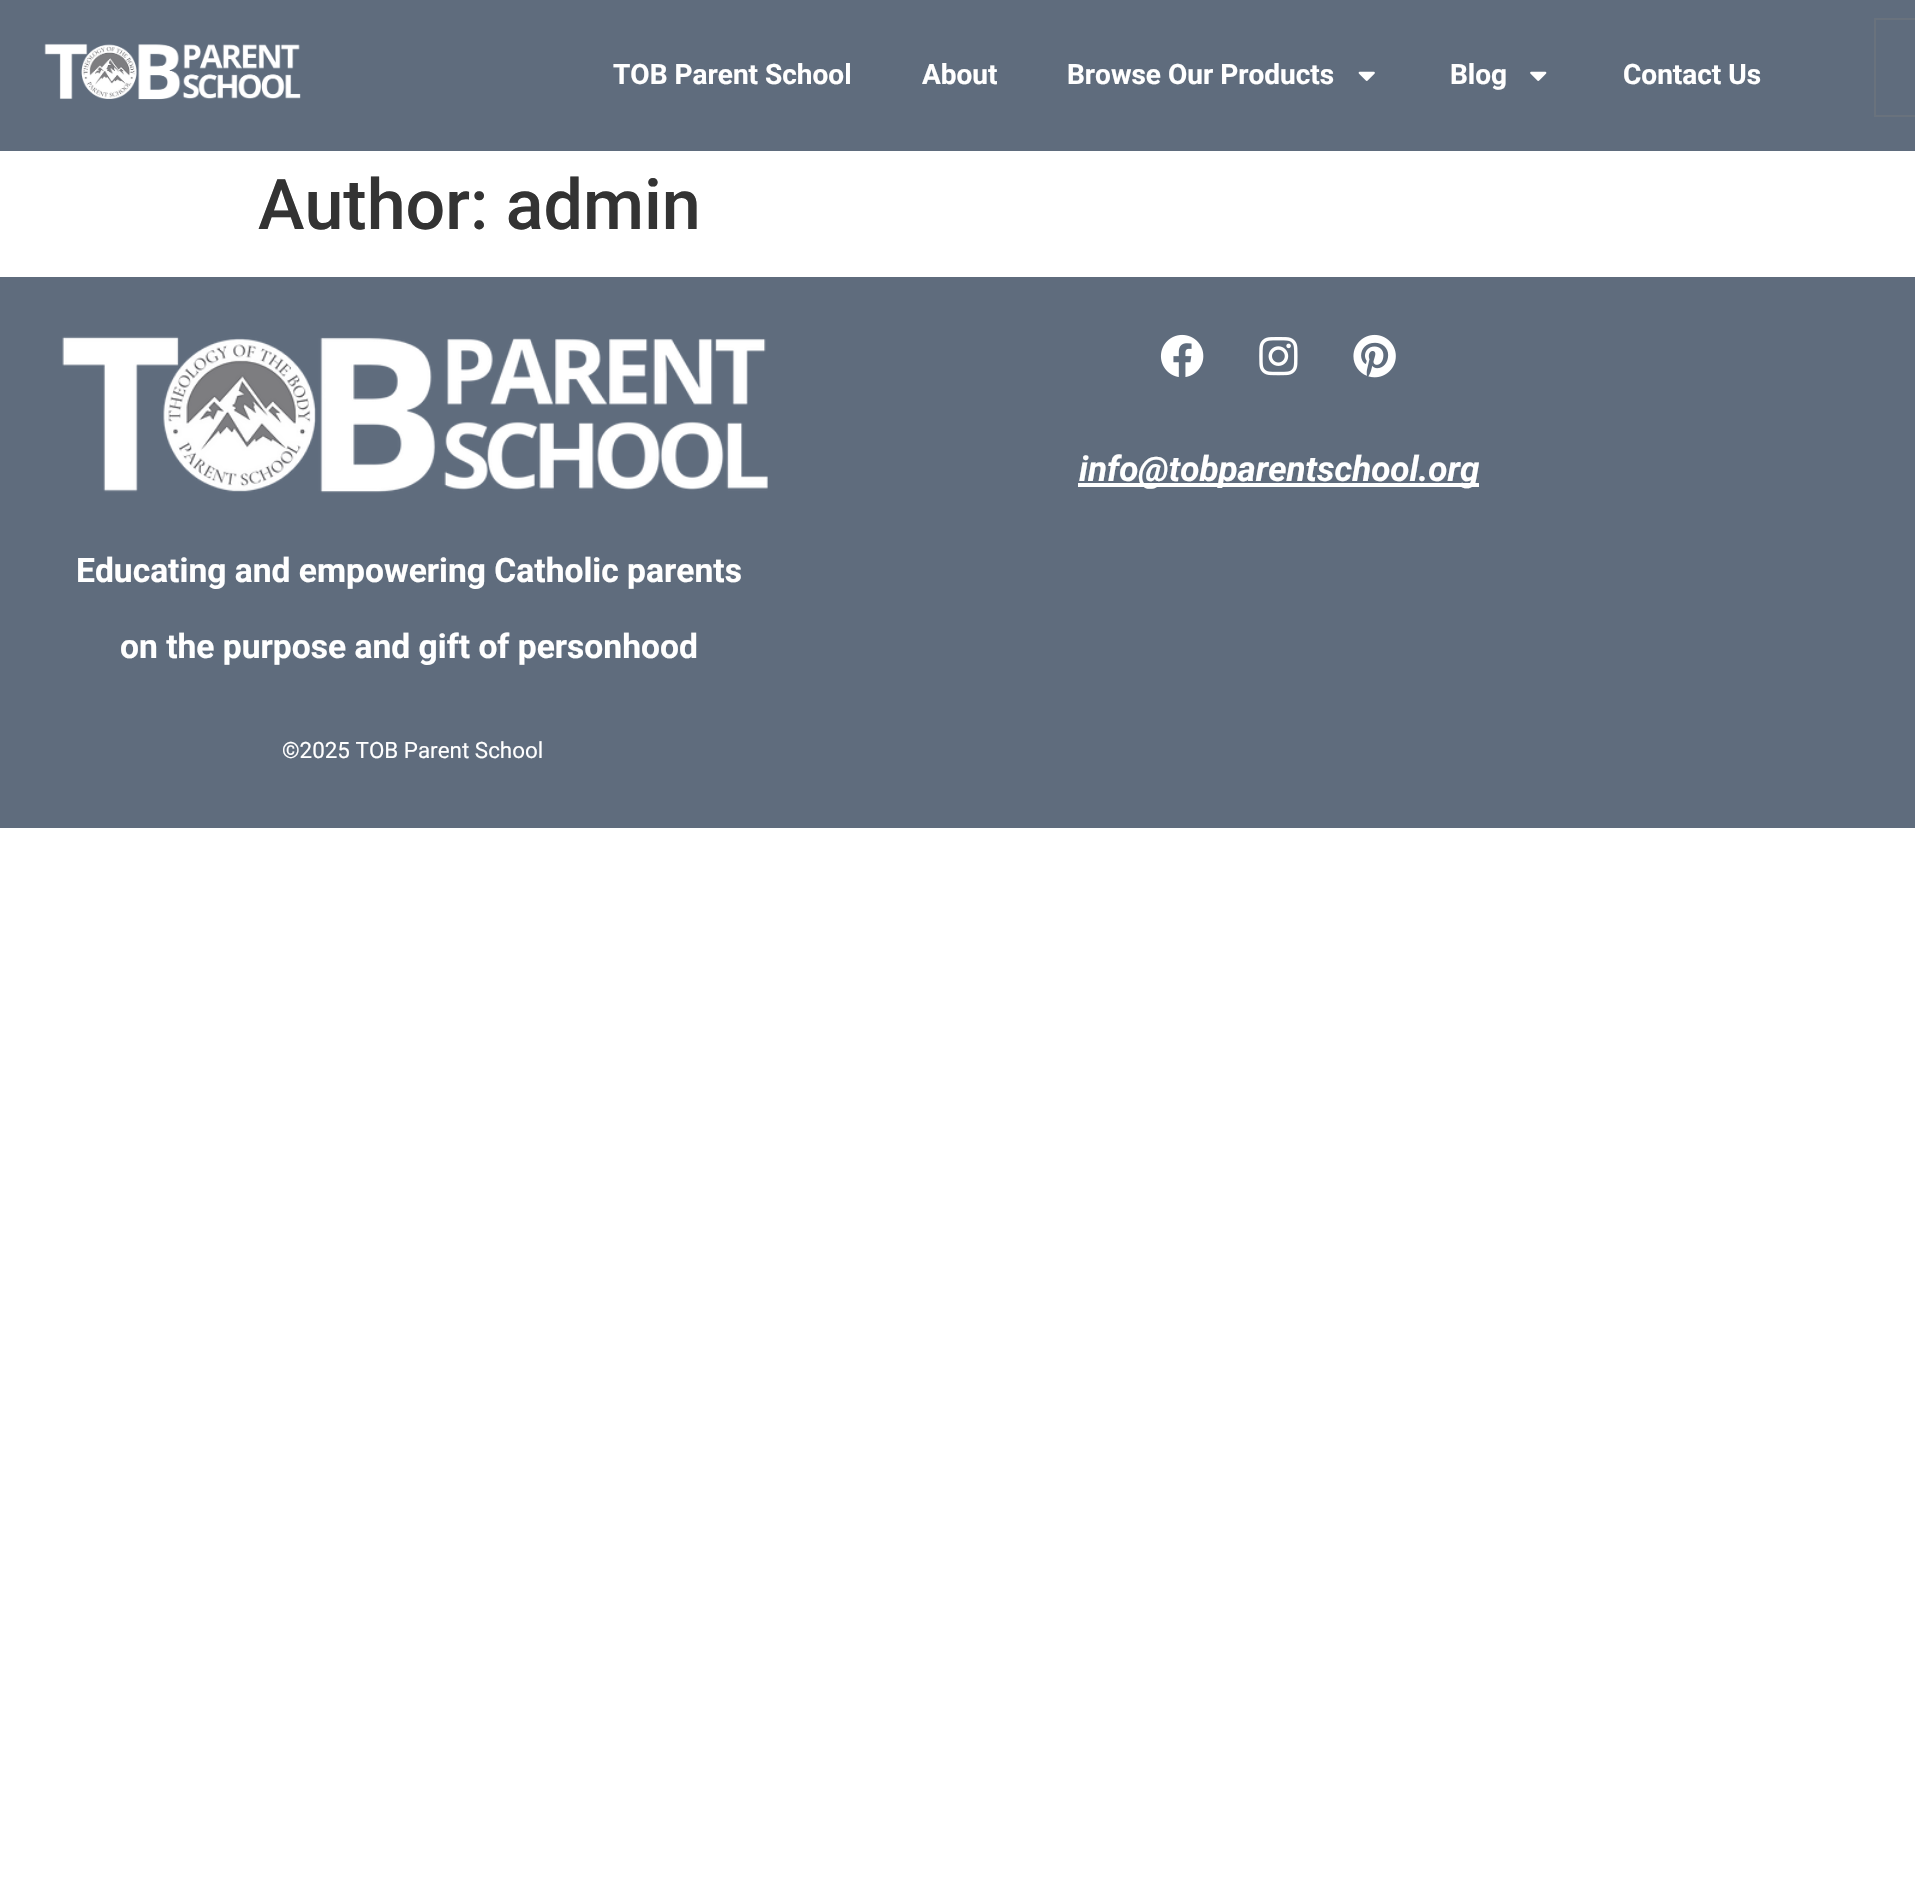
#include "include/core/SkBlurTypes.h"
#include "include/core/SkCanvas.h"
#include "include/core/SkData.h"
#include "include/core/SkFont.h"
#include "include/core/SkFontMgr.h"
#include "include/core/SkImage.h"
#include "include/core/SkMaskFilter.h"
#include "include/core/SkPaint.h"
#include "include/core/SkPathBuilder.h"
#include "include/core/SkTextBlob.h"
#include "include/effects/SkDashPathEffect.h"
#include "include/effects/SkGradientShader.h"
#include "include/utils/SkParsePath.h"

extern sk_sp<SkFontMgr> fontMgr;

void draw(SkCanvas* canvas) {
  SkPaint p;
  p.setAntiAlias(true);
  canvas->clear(SK_ColorWHITE);
  p.setColor(SkColorSetRGB(95, 108, 125));
  canvas->drawRect(SkRect::MakeLTRB(0, 0, 1915, 151), p);
  canvas->drawImageRect(SkImages::DeferredFromEncodedData(SkData::MakeFromFileName("images/1.png")), SkRect::MakeLTRB(44, 43, 301, 100), SkSamplingOptions());
  canvas->drawImageRect(SkImages::DeferredFromEncodedData(SkData::MakeFromFileName("images/2.png")), SkRect::MakeLTRB(1358, 71, 1375, 81), SkSamplingOptions());
  canvas->drawImageRect(SkImages::DeferredFromEncodedData(SkData::MakeFromFileName("images/3.png")), SkRect::MakeLTRB(1530, 71, 1547, 81), SkSamplingOptions());
  p.setStyle(SkPaint::kStroke_Style);
  p.setStrokeWidth(2);
  p.setColor(SkColorSetRGB(105, 114, 125));
  canvas->drawRect(SkRect::MakeLTRB(1875, 19, 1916, 116), p);
  p.setStyle(SkPaint::kFill_Style);
  p.setColor(SkColorSetRGB(95, 108, 125));
  canvas->drawRect(SkRect::MakeLTRB(0, 277, 1915, 828), p);
  canvas->drawImageRect(SkImages::DeferredFromEncodedData(SkData::MakeFromFileName("images/4.png")), SkRect::MakeLTRB(1160, 334, 1204, 377), SkSamplingOptions());
  canvas->drawImageRect(SkImages::DeferredFromEncodedData(SkData::MakeFromFileName("images/5.png")), SkRect::MakeLTRB(1259, 337, 1298, 376), SkSamplingOptions());
  canvas->drawImageRect(SkImages::DeferredFromEncodedData(SkData::MakeFromFileName("images/6.png")), SkRect::MakeLTRB(1353, 334, 1396, 378), SkSamplingOptions());
  p.setColor(SK_ColorWHITE);
  canvas->drawRect(SkRect::MakeLTRB(1078, 483, 1479, 487), p);
  canvas->drawImageRect(SkImages::DeferredFromEncodedData(SkData::MakeFromFileName("images/7.png")), SkRect::MakeLTRB(62, 336, 768, 493), SkSamplingOptions());
  SkFont font1(fontMgr->matchFamilyStyle("Roboto", SkFontStyle::Bold()), 28);
  font1.setSubpixel(true);
  canvas->drawString("TOB Parent School", 613, 84, font1, p);
  canvas->drawString("About", 922, 84, font1, p);
  canvas->drawString("Browse Our Products", 1067, 84, font1, p);
  canvas->drawString("Blog", 1450, 84, font1, p);
  canvas->drawString("Contact Us", 1623, 84, font1, p);
  SkFont font2(fontMgr->matchFamilyStyle("Roboto", SkFontStyle(500, SkFontStyle::kNormal_Width, SkFontStyle::kUpright_Slant)), 70);
  font2.setSubpixel(true);
  p.setColor(SkColorSetRGB(51, 51, 51));
  canvas->drawString("Author: admin", 258, 229, font2, p);
  SkFont font3(fontMgr->matchFamilyStyle("Roboto", SkFontStyle::BoldItalic()), 35);
  font3.setSubpixel(true);
  p.setColor(SK_ColorWHITE);
  canvas->drawString("info@tobparentschool.org", 1079, 481, font3, p);
  SkFont font4(fontMgr->matchFamilyStyle("Roboto", SkFontStyle::Bold()), 33.6f);
  font4.setSubpixel(true);
  canvas->drawString("Educating and empowering Catholic parents", 76, 582, font4, p);
  canvas->drawString("on the purpose and gift of personhood", 120, 658, font4, p);
  SkFont font5(fontMgr->matchFamilyStyle("Roboto", SkFontStyle::Normal()), 22.4f);
  font5.setSubpixel(true);
  canvas->drawString("©2025 TOB Parent School", 282, 758, font5, p);
}
